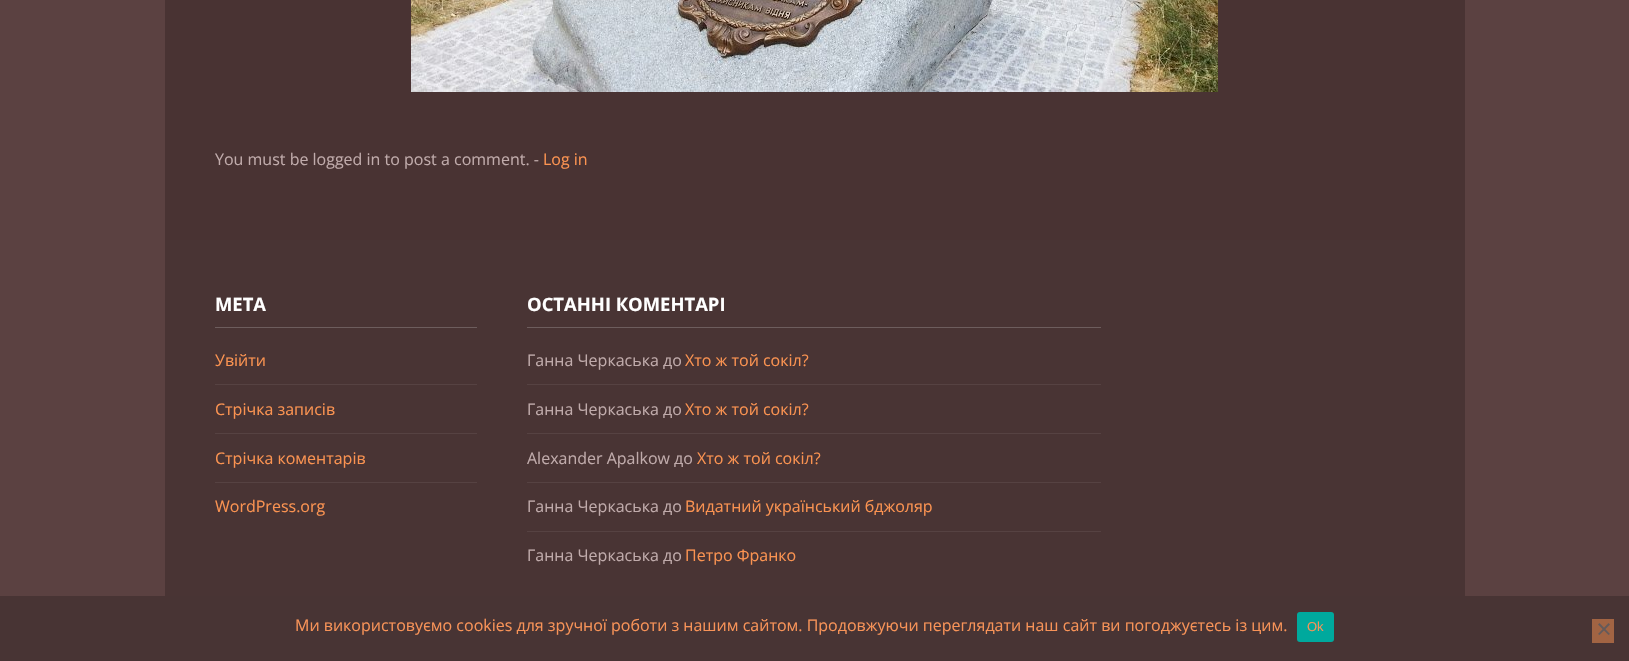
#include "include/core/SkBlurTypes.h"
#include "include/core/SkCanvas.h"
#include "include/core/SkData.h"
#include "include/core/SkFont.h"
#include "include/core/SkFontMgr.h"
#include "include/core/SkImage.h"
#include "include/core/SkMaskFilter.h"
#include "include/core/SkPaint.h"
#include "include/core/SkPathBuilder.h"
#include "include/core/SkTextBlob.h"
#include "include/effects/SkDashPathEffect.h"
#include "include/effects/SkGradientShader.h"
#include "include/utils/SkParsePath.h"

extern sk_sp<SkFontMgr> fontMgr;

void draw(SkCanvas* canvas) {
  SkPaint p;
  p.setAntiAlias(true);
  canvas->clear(SkColorSetRGB(91, 65, 65));
  p.setColor(SkColorSetRGB(73, 51, 51));
  canvas->drawRect(SkRect::MakeLTRB(165, 0, 1465, 240), p);
  canvas->drawImageRect(SkImages::DeferredFromEncodedData(SkData::MakeFromFileName("images/1.png")), SkRect::MakeLTRB(411, 0, 1218, 92), SkSamplingOptions());
  p.setColor(SkColorSetRGB(73, 52, 52));
  canvas->drawRect(SkRect::MakeLTRB(165, 240, 1465, 596), p);
  p.setColor(SkColorSetRGB(109, 93, 93));
  canvas->drawRect(SkRect::MakeLTRB(215, 327, 477, 328), p);
  p.setColor(SkColorSetRGB(86, 66, 66));
  canvas->drawRect(SkRect::MakeLTRB(215, 384, 477, 385), p);
  canvas->drawRect(SkRect::MakeLTRB(215, 433, 477, 434), p);
  canvas->drawRect(SkRect::MakeLTRB(215, 482, 477, 483), p);
  p.setColor(SkColorSetRGB(109, 93, 93));
  canvas->drawRect(SkRect::MakeLTRB(527, 327, 1101, 328), p);
  p.setColor(SkColorSetRGB(86, 66, 66));
  canvas->drawRect(SkRect::MakeLTRB(527, 384, 1101, 385), p);
  canvas->drawRect(SkRect::MakeLTRB(527, 433, 1101, 434), p);
  canvas->drawRect(SkRect::MakeLTRB(527, 482, 1101, 483), p);
  canvas->drawRect(SkRect::MakeLTRB(527, 531, 1101, 532), p);
  p.setColor(SkColorSetRGB(72, 52, 52));
  canvas->drawRect(SkRect::MakeLTRB(0, 596, 1629, 661), p);
  p.setColor(SkColorSetRGB(0, 169, 157));
  canvas->drawRoundRect(SkRect::MakeLTRB(1297, 612, 1334, 642), 3, 3, p);
  p.setColor(SkColorSetRGB(162, 100, 67));
  canvas->drawRect(SkRect::MakeLTRB(1592, 619, 1614, 643), p);
  p.setColor(SkColorSetRGB(100, 90, 90));
  canvas->drawPath(SkPathBuilder().moveTo(1608.5f, 623).lineTo(1610, 624.5f).lineTo(1599.5f, 635).lineTo(1598, 634).close().detach(), p);
  canvas->drawPath(SkPathBuilder().moveTo(1598, 624.5f).lineTo(1599.5f, 623).lineTo(1610, 634).lineTo(1608.5f, 635).close().detach(), p);
  SkFont font1(fontMgr->matchFamilyStyle("Open Sans", SkFontStyle::Normal()), 16);
  font1.setSubpixel(true);
  p.setColor(SkColorSetRGB(192, 171, 171));
  canvas->drawString("You must be logged in to post a comment. -", 215, 165, font1, p);
  p.setColor(SkColorSetRGB(251, 147, 81));
  canvas->drawString("Log in", 543, 165, font1, p);
  SkFont font2(fontMgr->matchFamilyStyle("Open Sans", SkFontStyle::Bold()), 18.4f);
  font2.setSubpixel(true);
  p.setColor(SK_ColorWHITE);
  canvas->drawString("МЕТА", 215, 311, font2, p);
  p.setColor(SkColorSetRGB(251, 147, 81));
  canvas->drawString("Увійти", 215, 366, font1, p);
  canvas->drawString("Стрічка записів", 215, 415, font1, p);
  canvas->drawString("Стрічка коментарів", 215, 464, font1, p);
  canvas->drawString("WordPress.org", 215, 512, font1, p);
  p.setColor(SK_ColorWHITE);
  canvas->drawString("ОСТАННІ КОМЕНТАРІ", 527, 311, font2, p);
  p.setColor(SkColorSetRGB(192, 171, 171));
  canvas->drawString("Ганна Черкаська до", 527, 366, font1, p);
  p.setColor(SkColorSetRGB(251, 147, 81));
  canvas->drawString("Хто ж той сокіл?", 685, 366, font1, p);
  p.setColor(SkColorSetRGB(192, 171, 171));
  canvas->drawString("Ганна Черкаська до", 527, 415, font1, p);
  p.setColor(SkColorSetRGB(251, 147, 81));
  canvas->drawString("Хто ж той сокіл?", 685, 415, font1, p);
  p.setColor(SkColorSetRGB(192, 171, 171));
  canvas->drawString("Alexander Apalkow до", 527, 464, font1, p);
  p.setColor(SkColorSetRGB(251, 147, 81));
  canvas->drawString("Хто ж той сокіл?", 697, 464, font1, p);
  p.setColor(SkColorSetRGB(192, 171, 171));
  canvas->drawString("Ганна Черкаська до", 527, 512, font1, p);
  p.setColor(SkColorSetRGB(251, 147, 81));
  canvas->drawString("Видатний український бджоляр", 685, 512, font1, p);
  p.setColor(SkColorSetRGB(192, 171, 171));
  canvas->drawString("Ганна Черкаська до", 527, 561, font1, p);
  p.setColor(SkColorSetRGB(251, 147, 81));
  canvas->drawString("Петро Франко", 685, 561, font1, p);
  p.setColor(SkColorSetRGB(248, 147, 88));
  canvas->drawString("Ми використовуємо cookies для зручної роботи з нашим сайтом. Продовжуючи переглядати наш сайт ви погоджуєтесь із цим.", 295, 631, font1, p);
  SkFont font3(fontMgr->matchFamilyStyle("Liberation Sans", SkFontStyle::Normal()), 13);
  font3.setSubpixel(true);
  canvas->drawString("Ok", 1307, 631, font3, p);
}
